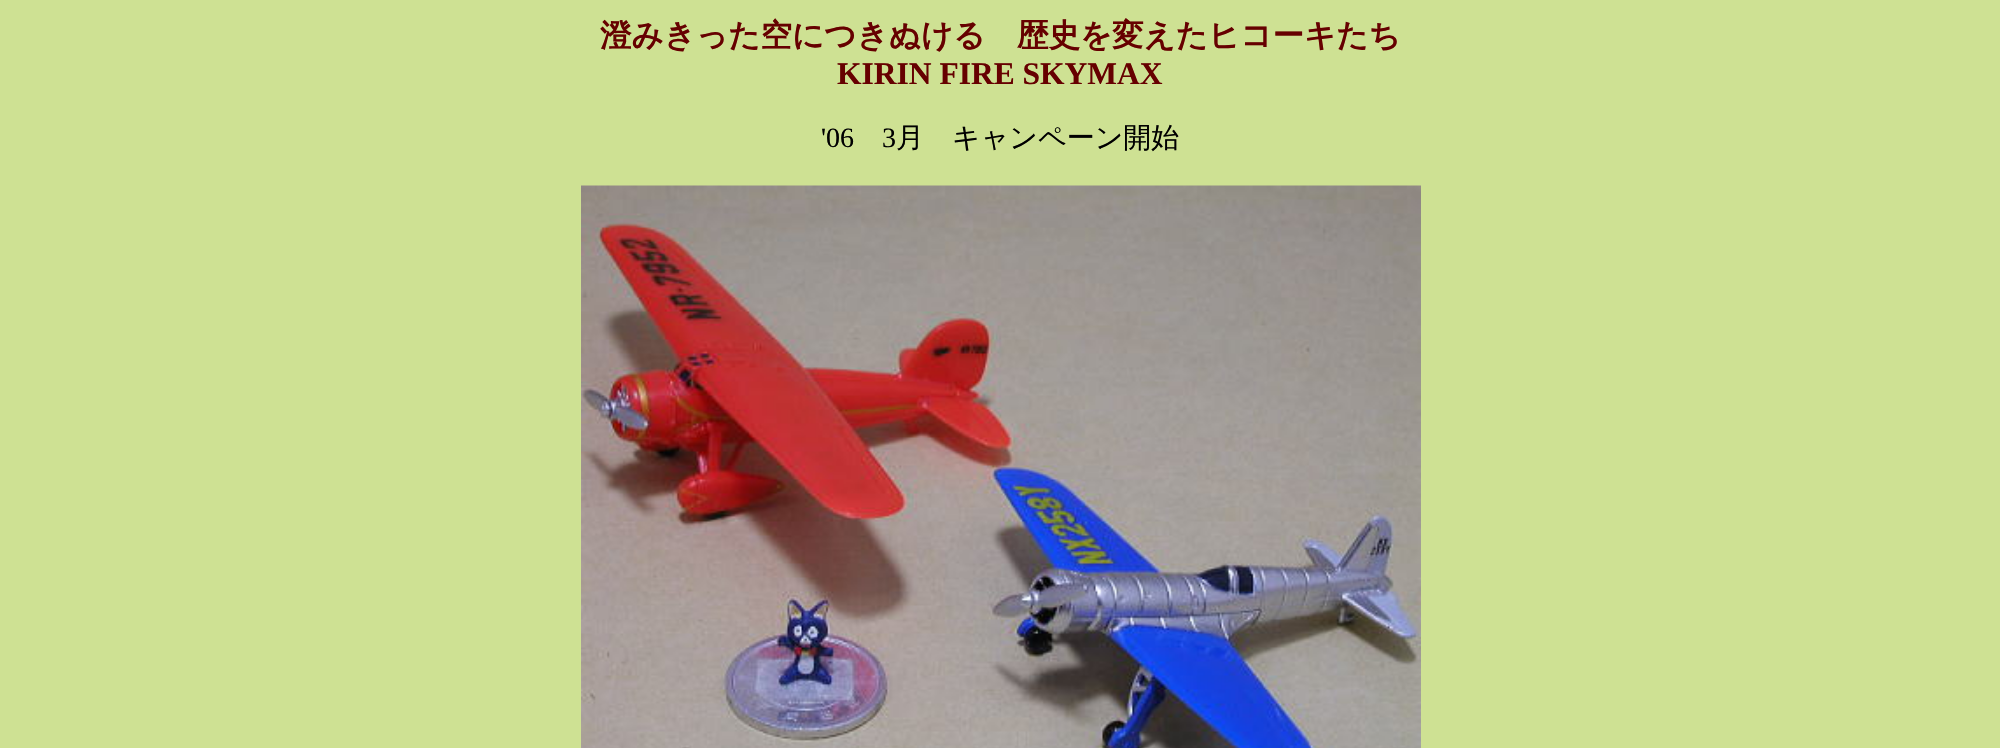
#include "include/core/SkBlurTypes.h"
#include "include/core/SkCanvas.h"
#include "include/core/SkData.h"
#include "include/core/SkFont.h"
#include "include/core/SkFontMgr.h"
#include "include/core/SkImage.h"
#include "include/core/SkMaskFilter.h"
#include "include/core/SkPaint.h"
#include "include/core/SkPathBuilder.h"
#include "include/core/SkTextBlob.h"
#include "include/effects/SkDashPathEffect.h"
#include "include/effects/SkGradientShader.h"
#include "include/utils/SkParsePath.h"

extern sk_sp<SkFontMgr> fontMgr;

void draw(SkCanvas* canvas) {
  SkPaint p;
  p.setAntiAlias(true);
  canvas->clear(SkColorSetRGB(206, 225, 147));
  canvas->drawImageRect(SkImages::DeferredFromEncodedData(SkData::MakeFromFileName("images/1.png")), SkRect::MakeLTRB(581, 185, 1421, 748), SkSamplingOptions());
  SkFont font1(fontMgr->matchFamilyStyle("WenQuanYi Zen Hei", SkFontStyle::Bold()), 31.5f);
  font1.setSubpixel(true);
  p.setColor(SkColorSetRGB(102, 0, 0));
  canvas->drawString("澄みきった空につきぬける　歴史を変えたヒコーキたち", 600, 46, font1, p);
  SkFont font2(fontMgr->matchFamilyStyle("Liberation Serif", SkFontStyle::Bold()), 31.5f);
  font2.setSubpixel(true);
  canvas->drawString("KIRIN FIRE SKYMAX", 837, 84, font2, p);
  SkFont font3(fontMgr->matchFamilyStyle("Liberation Serif", SkFontStyle::Normal()), 28);
  font3.setSubpixel(true);
  p.setColor(SK_ColorBLACK);
  canvas->drawString("'06", 821, 147, font3, p);
  canvas->drawString("3", 882, 147, font3, p);
  SkFont font4(fontMgr->matchFamilyStyle("WenQuanYi Zen Hei", SkFontStyle(500, SkFontStyle::kNormal_Width, SkFontStyle::kUpright_Slant)), 28);
  font4.setSubpixel(true);
  canvas->drawString("月　キャンペーン開始", 896, 147, font4, p);
}
